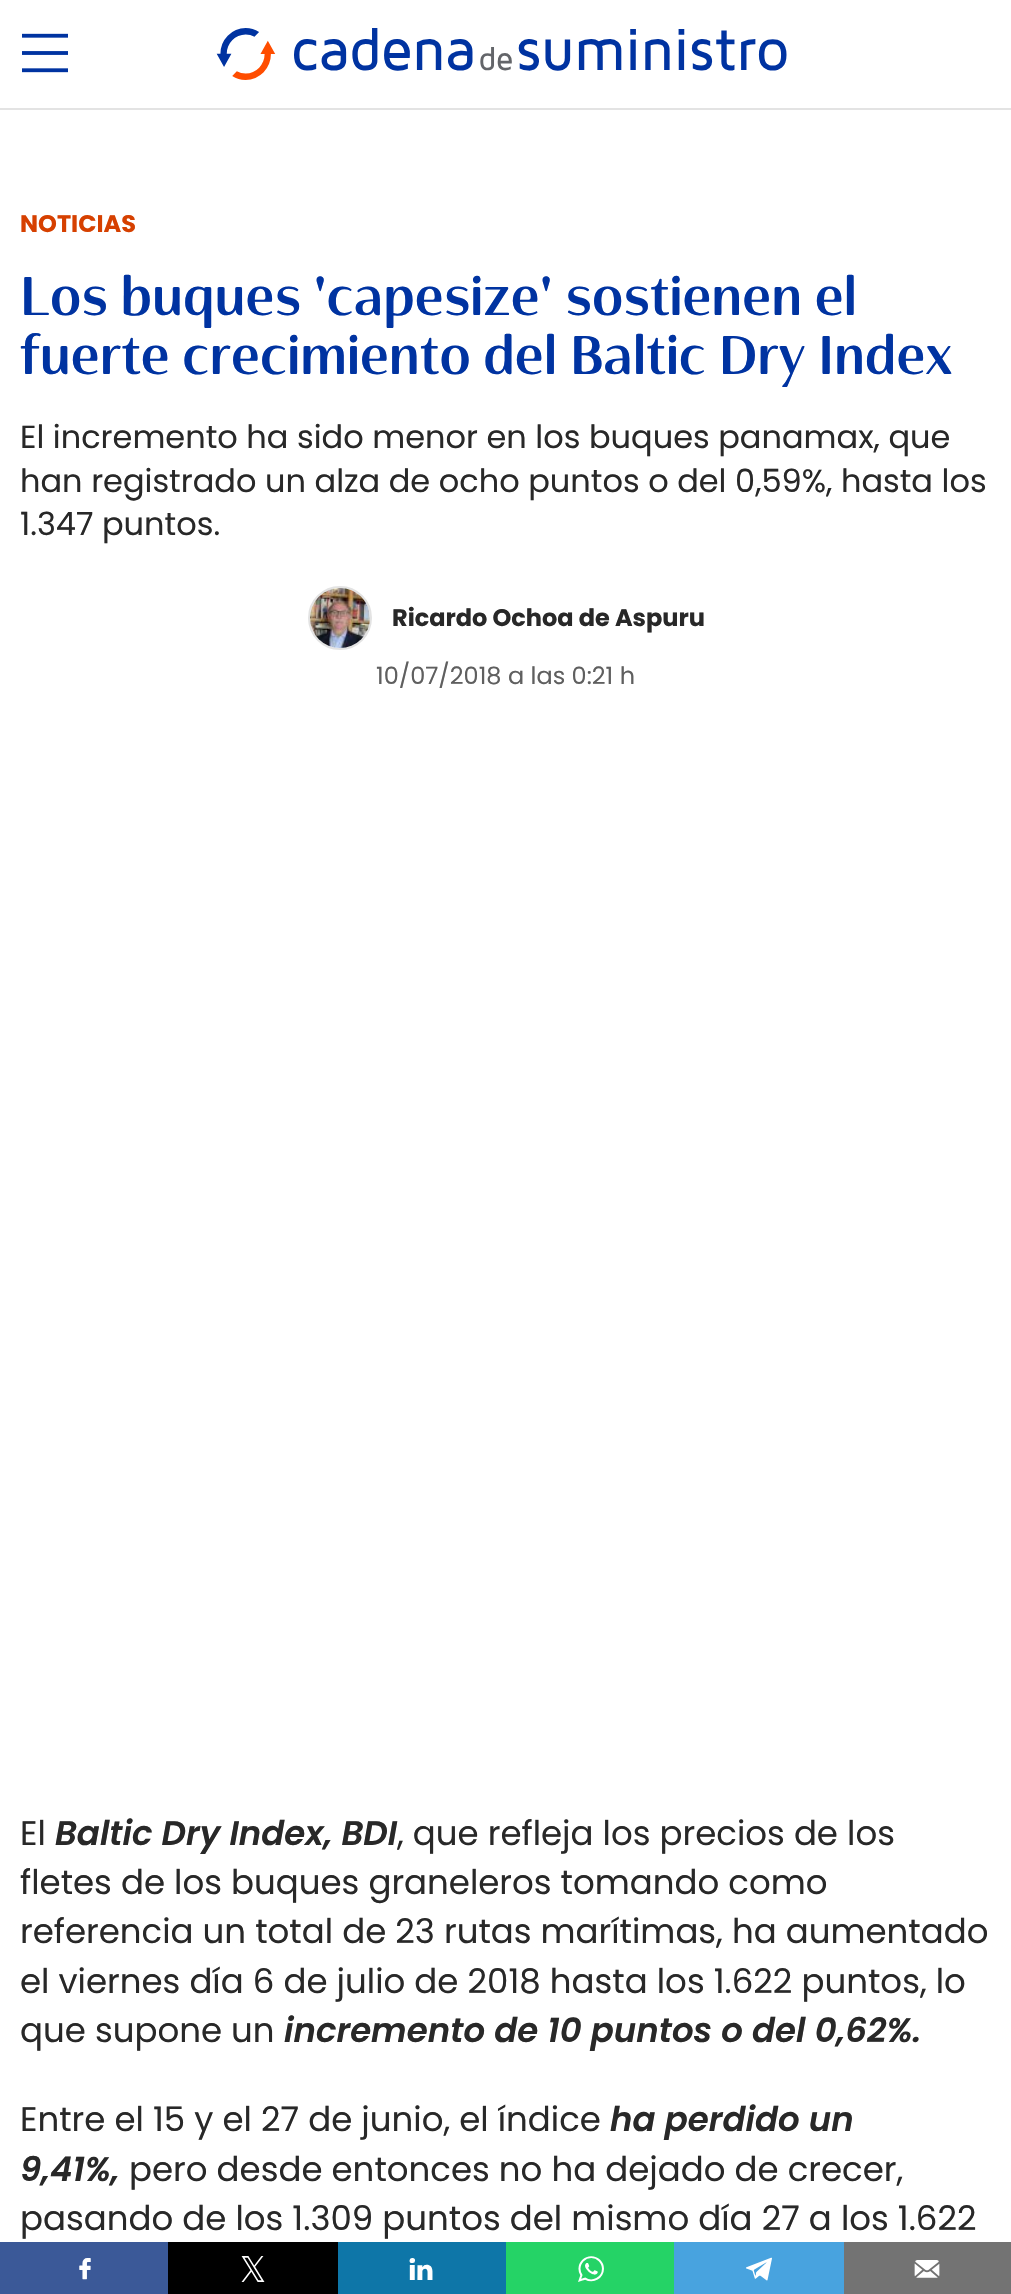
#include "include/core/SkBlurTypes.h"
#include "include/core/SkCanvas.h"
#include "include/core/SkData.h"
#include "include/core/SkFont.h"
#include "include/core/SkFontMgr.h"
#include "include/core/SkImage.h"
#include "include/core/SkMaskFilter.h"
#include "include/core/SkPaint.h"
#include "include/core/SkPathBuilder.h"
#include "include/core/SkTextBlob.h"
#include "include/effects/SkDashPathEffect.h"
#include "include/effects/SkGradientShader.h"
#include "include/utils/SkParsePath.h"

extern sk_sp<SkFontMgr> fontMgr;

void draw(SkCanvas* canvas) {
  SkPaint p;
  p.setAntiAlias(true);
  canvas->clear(SK_ColorWHITE);
  p.setColor(SkColorSetRGB(227, 227, 227));
  canvas->drawRect(SkRect::MakeLTRB(0, 108, 1011, 110), p);
  canvas->drawImageRect(SkImages::DeferredFromEncodedData(SkData::MakeFromFileName("images/1.png")), SkRect::MakeLTRB(216, 28, 787, 80), SkSamplingOptions());
  canvas->drawImageRect(SkImages::DeferredFromEncodedData(SkData::MakeFromFileName("images/2.png")), SkRect::MakeLTRB(22, 33, 68, 73), SkSamplingOptions());
  p.setStyle(SkPaint::kStroke_Style);
  p.setStrokeWidth(2);
  canvas->drawCircle(340, 618, 31, p);
  canvas->drawImageRect(SkImages::DeferredFromEncodedData(SkData::MakeFromFileName("images/3.png")), SkRect::MakeLTRB(310, 588, 370, 648), SkSamplingOptions());
  p.setStyle(SkPaint::kFill_Style);
  p.setColor(SkColorSetRGB(59, 89, 152));
  canvas->drawRect(SkRect::MakeLTRB(0, 2242, 168, 2294), p);
  canvas->drawImageRect(SkImages::DeferredFromEncodedData(SkData::MakeFromFileName("images/4.png")), SkRect::MakeLTRB(79, 2258, 91, 2280), SkSamplingOptions());
  p.setColor(SK_ColorBLACK);
  canvas->drawRect(SkRect::MakeLTRB(168, 2242, 338, 2294), p);
  canvas->drawImageRect(SkImages::DeferredFromEncodedData(SkData::MakeFromFileName("images/5.png")), SkRect::MakeLTRB(241, 2256, 265, 2282), SkSamplingOptions());
  p.setColor(SkColorSetRGB(14, 118, 168));
  canvas->drawRect(SkRect::MakeLTRB(338, 2242, 506, 2294), p);
  canvas->drawImageRect(SkImages::DeferredFromEncodedData(SkData::MakeFromFileName("images/6.png")), SkRect::MakeLTRB(409, 2258, 433, 2280), SkSamplingOptions());
  p.setColor(SkColorSetRGB(37, 211, 102));
  canvas->drawRect(SkRect::MakeLTRB(506, 2242, 674, 2294), p);
  canvas->drawImageRect(SkImages::DeferredFromEncodedData(SkData::MakeFromFileName("images/7.png")), SkRect::MakeLTRB(578, 2256, 604, 2282), SkSamplingOptions());
  p.setColor(SkColorSetRGB(72, 163, 223));
  canvas->drawRect(SkRect::MakeLTRB(674, 2242, 844, 2294), p);
  canvas->drawImageRect(SkImages::DeferredFromEncodedData(SkData::MakeFromFileName("images/8.png")), SkRect::MakeLTRB(746, 2257, 772, 2281), SkSamplingOptions());
  p.setColor(SkColorSetRGB(115, 115, 115));
  canvas->drawRect(SkRect::MakeLTRB(844, 2242, 1011, 2294), p);
  canvas->drawImageRect(SkImages::DeferredFromEncodedData(SkData::MakeFromFileName("images/9.png")), SkRect::MakeLTRB(914, 2260, 940, 2278), SkSamplingOptions());
  SkFont font1(fontMgr->matchFamilyStyle("Poppins", SkFontStyle::Bold()), 24);
  font1.setSubpixel(true);
  p.setColor(SkColorSetRGB(214, 64, 0));
  canvas->drawString("NOTICIAS", 20, 232, font1, p);
  SkFont font2(fontMgr->matchFamilyStyle("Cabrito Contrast", SkFontStyle(800, SkFontStyle::kNormal_Width, SkFontStyle::kUpright_Slant)), 54);
  font2.setSubpixel(true);
  p.setColor(SkColorSetRGB(0, 51, 161));
  canvas->drawString("Los buques 'capesize' sostienen el", 20, 315, font2, p);
  canvas->drawString("fuerte crecimiento del Baltic Dry Index", 20, 374, font2, p);
  SkFont font3(fontMgr->matchFamilyStyle("Poppins", SkFontStyle::Normal()), 32);
  font3.setSubpixel(true);
  p.setColor(SkColorSetRGB(40, 40, 40));
  canvas->drawString("El incremento ha sido menor en los buques panamax, que", 20, 448, font3, p);
  canvas->drawString("han registrado un alza de ocho puntos o del 0,59%, hasta los", 20, 492, font3, p);
  canvas->drawString("1.347 puntos.", 20, 535, font3, p);
  canvas->drawString("Ricardo Ochoa de Aspuru", 392, 626, font1, p);
  SkFont font4(fontMgr->matchFamilyStyle("Poppins", SkFontStyle::Normal()), 24);
  font4.setSubpixel(true);
  p.setColor(SkColorSetRGB(95, 95, 95));
  canvas->drawString("10/07/2018 a las 0:21 h", 376, 684, font4, p);
  SkFont font5(fontMgr->matchFamilyStyle("Poppins", SkFontStyle::Normal()), 34);
  font5.setSubpixel(true);
  p.setColor(SkColorSetRGB(40, 40, 40));
  canvas->drawString("El", 20, 1845, font5, p);
  SkFont font6(fontMgr->matchFamilyStyle("Poppins", SkFontStyle(600, SkFontStyle::kNormal_Width, SkFontStyle::kItalic_Slant)), 34);
  font6.setSubpixel(true);
  canvas->drawString("Baltic Dry Index, BDI", 55, 1845, font6, p);
  canvas->drawString(", que refleja los precios de los", 397, 1845, font5, p);
  canvas->drawString("fletes de los buques graneleros tomando como", 20, 1894, font5, p);
  canvas->drawString("referencia un total de 23 rutas marítimas, ha aumentado", 20, 1943, font5, p);
  canvas->drawString("el viernes día 6 de julio de 2018 hasta los 1.622 puntos, lo", 20, 1993, font5, p);
  canvas->drawString("que supone un", 20, 2042, font5, p);
  canvas->drawString("incremento de 10 puntos o del 0,62%.", 284, 2042, font6, p);
  canvas->drawString("Entre el 15 y el 27 de junio, el índice", 20, 2131, font5, p);
  canvas->drawString("ha perdido un", 610, 2131, font6, p);
  canvas->drawString("9,41%,", 20, 2181, font6, p);
  canvas->drawString("pero desde entonces no ha dejado de crecer,", 129, 2181, font5, p);
  canvas->drawString("pasando de los 1.309 puntos del mismo día 27 a los 1.622", 20, 2230, font5, p);
}
